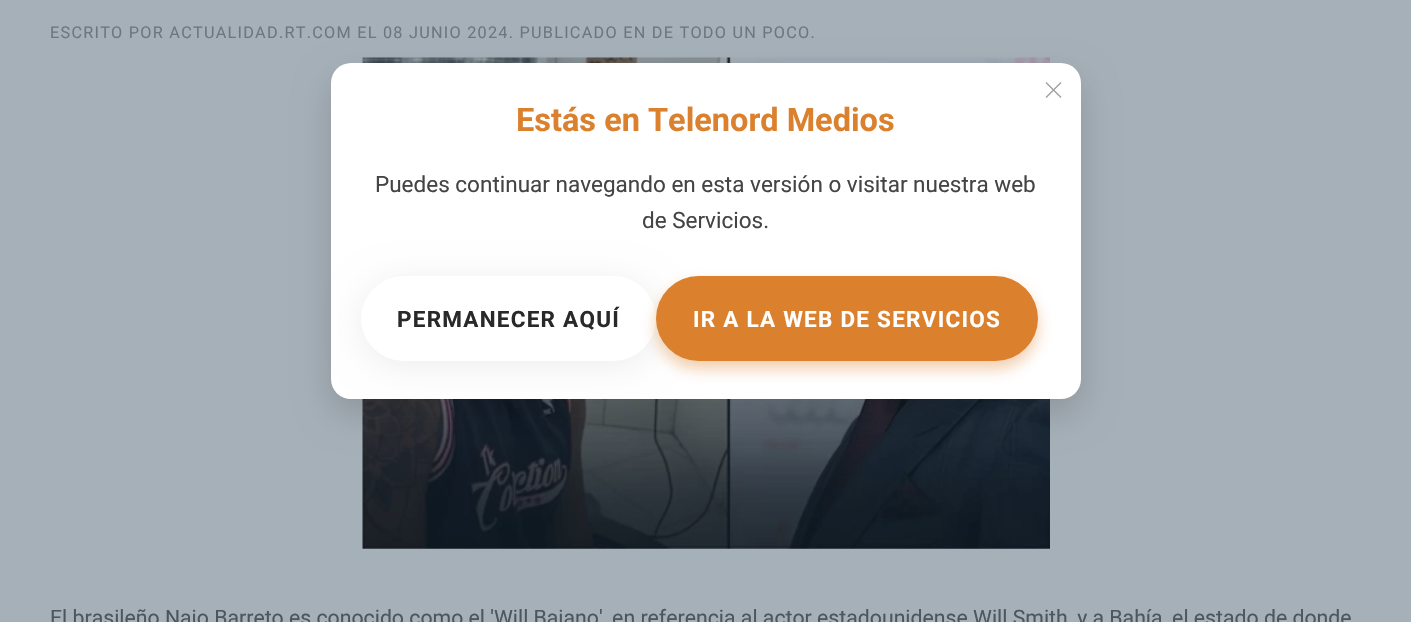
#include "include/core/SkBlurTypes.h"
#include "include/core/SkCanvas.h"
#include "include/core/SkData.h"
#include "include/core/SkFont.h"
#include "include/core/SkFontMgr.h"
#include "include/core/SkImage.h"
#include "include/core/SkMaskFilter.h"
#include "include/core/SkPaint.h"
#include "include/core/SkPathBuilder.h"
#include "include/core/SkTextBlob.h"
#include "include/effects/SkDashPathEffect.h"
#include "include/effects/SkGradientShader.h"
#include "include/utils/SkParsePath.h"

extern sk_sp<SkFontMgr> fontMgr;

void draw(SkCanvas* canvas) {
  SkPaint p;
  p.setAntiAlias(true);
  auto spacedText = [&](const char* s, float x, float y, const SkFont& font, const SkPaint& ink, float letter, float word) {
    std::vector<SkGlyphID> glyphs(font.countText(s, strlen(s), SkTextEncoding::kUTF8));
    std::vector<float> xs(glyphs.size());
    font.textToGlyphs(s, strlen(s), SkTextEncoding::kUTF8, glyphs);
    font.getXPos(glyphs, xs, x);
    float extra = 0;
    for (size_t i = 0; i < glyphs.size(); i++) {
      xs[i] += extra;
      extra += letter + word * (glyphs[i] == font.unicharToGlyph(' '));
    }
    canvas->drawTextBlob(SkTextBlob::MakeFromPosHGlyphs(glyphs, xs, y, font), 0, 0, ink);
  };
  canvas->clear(SkColorSetRGB(166, 176, 184));
  canvas->drawImageRect(SkImages::DeferredFromEncodedData(SkData::MakeFromFileName("images/1.png")), SkRect::MakeLTRB(362, 57, 1050, 549), SkSamplingOptions());
  p.setColor(SkColorSetARGB(38, 0, 0, 0));
  p.setMaskFilter(SkMaskFilter::MakeBlur(kNormal_SkBlurStyle, 17.5f));
  canvas->drawRoundRect(SkRect::MakeLTRB(331, 78, 1081, 414), 20, 20, p);
  p.setMaskFilter(nullptr);
  p.setColor(SK_ColorWHITE);
  canvas->drawRoundRect(SkRect::MakeLTRB(331, 63, 1081, 399), 20, 20, p);
  p.setStyle(SkPaint::kStroke_Style);
  p.setStrokeWidth(1.4f);
  p.setColor(SkColorSetRGB(160, 160, 160));
  canvas->drawPath(SkPathBuilder().moveTo(1046, 82.5f).lineTo(1061, 97.5f).moveTo(1061, 82.5f).lineTo(1046, 97.5f).detach(), p);
  p.setStyle(SkPaint::kFill_Style);
  p.setColor(SkColorSetARGB(18, 0, 0, 0));
  p.setMaskFilter(SkMaskFilter::MakeBlur(kNormal_SkBlurStyle, 17.5f));
  canvas->drawRoundRect(SkRect::MakeLTRB(361, 281, 656, 366), 42.5f, 42.5f, p);
  p.setMaskFilter(nullptr);
  p.setColor(SK_ColorWHITE);
  canvas->drawRoundRect(SkRect::MakeLTRB(361, 276, 656, 361), 42.5f, 42.5f, p);
  p.setColor(SkColorSetARGB(102, 219, 129, 46));
  p.setMaskFilter(SkMaskFilter::MakeBlur(kNormal_SkBlurStyle, 7.5f));
  canvas->drawRoundRect(SkRect::MakeLTRB(656, 284, 1038, 369), 42.5f, 42.5f, p);
  p.setMaskFilter(nullptr);
  p.setColor(SkColorSetRGB(219, 129, 46));
  canvas->drawRoundRect(SkRect::MakeLTRB(656, 276, 1038, 361), 42.5f, 42.5f, p);
  SkFont font1(fontMgr->matchFamilyStyle("Roboto", SkFontStyle::Normal()), 16.25f);
  font1.setSubpixel(true);
  p.setColor(SkColorSetRGB(109, 119, 127));
  spacedText("ESCRITO POR ACTUALIDAD.RT.COM EL 08 JUNIO 2024. PUBLICADO EN DE TODO UN POCO.", 50, 38, font1, p, 1.25f, 0);
  SkFont font2(fontMgr->matchFamilyStyle("Roboto", SkFontStyle::Normal()), 21.25f);
  font2.setSubpixel(true);
  p.setColor(SkColorSetRGB(76, 86, 94));
  canvas->drawString("El brasileño Naio Barreto es conocido como el 'Will Baiano', en referencia al actor estadounidense Will Smith, y a Bahía, el estado de donde", 50, 625, font2, p);
  SkFont font3(fontMgr->matchFamilyStyle("Roboto", SkFontStyle::Bold()), 32.5f);
  font3.setSubpixel(true);
  p.setColor(SkColorSetRGB(219, 129, 46));
  canvas->drawString("Estás en Telenord Medios", 516, 131, font3, p);
  SkFont font4(fontMgr->matchFamilyStyle("Roboto", SkFontStyle::Normal()), 22.5f);
  font4.setSubpixel(true);
  p.setColor(SkColorSetRGB(68, 68, 68));
  canvas->drawString("Puedes continuar navegando en esta versión o visitar nuestra web", 375, 192, font4, p);
  canvas->drawString("de Servicios.", 642, 228, font4, p);
  SkFont font5(fontMgr->matchFamilyStyle("Roboto", SkFontStyle::Bold()), 22.5f);
  font5.setSubpixel(true);
  p.setColor(SkColorSetRGB(41, 41, 41));
  spacedText("PERMANECER AQUÍ", 397, 327, font5, p, 1.25f, 0);
  p.setColor(SK_ColorWHITE);
  spacedText("IR A LA WEB DE SERVICIOS", 693, 327, font5, p, 1.25f, 0);
}
